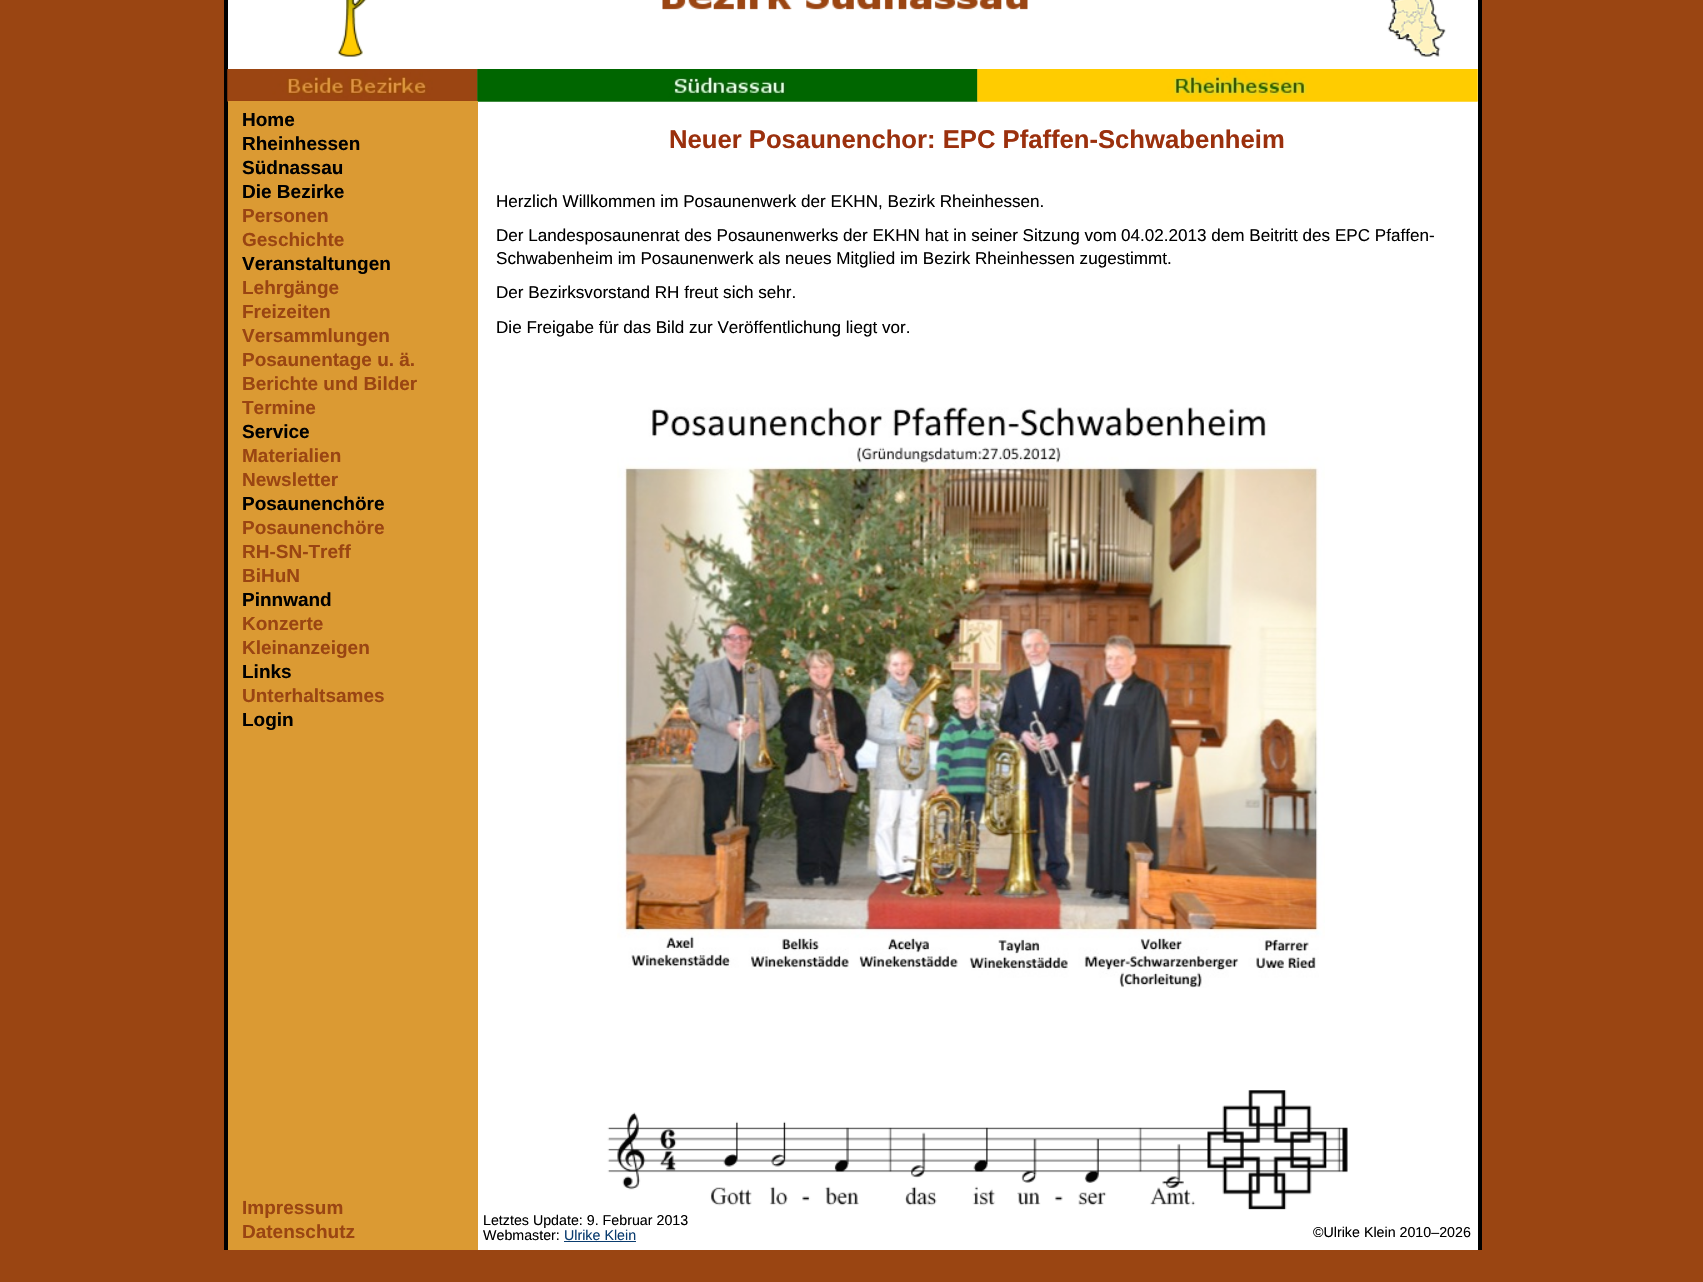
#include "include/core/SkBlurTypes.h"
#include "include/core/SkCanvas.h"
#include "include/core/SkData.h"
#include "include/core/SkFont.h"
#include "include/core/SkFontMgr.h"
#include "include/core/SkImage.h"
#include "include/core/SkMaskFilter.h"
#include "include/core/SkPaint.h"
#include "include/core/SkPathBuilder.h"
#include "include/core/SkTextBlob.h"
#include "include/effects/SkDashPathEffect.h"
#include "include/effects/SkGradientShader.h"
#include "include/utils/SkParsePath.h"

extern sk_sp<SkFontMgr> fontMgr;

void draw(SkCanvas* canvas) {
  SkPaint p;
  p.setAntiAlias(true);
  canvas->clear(SkColorSetRGB(154, 69, 18));
  p.setColor(SK_ColorWHITE);
  canvas->drawRect(SkRect::MakeLTRB(228, 0, 1478, 1250), p);
  p.setColor(SK_ColorBLACK);
  canvas->drawRect(SkRect::MakeLTRB(1478, 0, 1482, 1250), p);
  canvas->drawRect(SkRect::MakeLTRB(224, 0, 228, 1250), p);
  canvas->drawImageRect(SkImages::DeferredFromEncodedData(SkData::MakeFromFileName("images/1.png")), SkRect::MakeLTRB(337, 0, 367, 57), SkSamplingOptions());
  canvas->drawImageRect(SkImages::DeferredFromEncodedData(SkData::MakeFromFileName("images/2.png")), SkRect::MakeLTRB(1387, 0, 1446, 57), SkSamplingOptions());
  canvas->drawImageRect(SkImages::DeferredFromEncodedData(SkData::MakeFromFileName("images/3.png")), SkRect::MakeLTRB(662, 0, 1028, 10), SkSamplingOptions());
  canvas->drawImageRect(SkImages::DeferredFromEncodedData(SkData::MakeFromFileName("images/4.png")), SkRect::MakeLTRB(227, 69, 478, 102), SkSamplingOptions());
  canvas->drawImageRect(SkImages::DeferredFromEncodedData(SkData::MakeFromFileName("images/5.png")), SkRect::MakeLTRB(227, 69, 478, 102), SkSamplingOptions());
  canvas->drawImageRect(SkImages::DeferredFromEncodedData(SkData::MakeFromFileName("images/6.png")), SkRect::MakeLTRB(477, 69, 978, 102), SkSamplingOptions());
  canvas->drawImageRect(SkImages::DeferredFromEncodedData(SkData::MakeFromFileName("images/7.png")), SkRect::MakeLTRB(477, 69, 978, 102), SkSamplingOptions());
  canvas->drawImageRect(SkImages::DeferredFromEncodedData(SkData::MakeFromFileName("images/8.png")), SkRect::MakeLTRB(977, 69, 1478, 102), SkSamplingOptions());
  canvas->drawImageRect(SkImages::DeferredFromEncodedData(SkData::MakeFromFileName("images/9.png")), SkRect::MakeLTRB(977, 69, 1478, 102), SkSamplingOptions());
  p.setColor(SkColorSetRGB(219, 154, 51));
  canvas->drawRect(SkRect::MakeLTRB(228, 101, 478, 1250), p);
  canvas->drawImageRect(SkImages::DeferredFromEncodedData(SkData::MakeFromFileName("images/10.png")), SkRect::MakeLTRB(617, 407, 1325, 988), SkSamplingOptions());
  canvas->drawImageRect(SkImages::DeferredFromEncodedData(SkData::MakeFromFileName("images/11.png")), SkRect::MakeLTRB(607, 1090, 1348, 1210), SkSamplingOptions());
  p.setColor(SkColorSetRGB(10, 60, 111));
  canvas->drawRect(SkRect::MakeLTRB(564, 1241, 636, 1242), p);
  SkFont font1(fontMgr->matchFamilyStyle("Liberation Sans", SkFontStyle::Bold()), 19);
  font1.setSubpixel(true);
  p.setColor(SK_ColorBLACK);
  canvas->drawString("Home", 242, 126, font1, p);
  canvas->drawString("Rheinhessen", 242, 150, font1, p);
  canvas->drawString("Südnassau", 242, 174, font1, p);
  canvas->drawString("Die Bezirke", 242, 198, font1, p);
  p.setColor(SkColorSetRGB(154, 69, 18));
  canvas->drawString("Personen", 242, 222, font1, p);
  canvas->drawString("Geschichte", 242, 246, font1, p);
  p.setColor(SK_ColorBLACK);
  canvas->drawString("Veranstaltungen", 242, 270, font1, p);
  p.setColor(SkColorSetRGB(154, 69, 18));
  canvas->drawString("Lehrgänge", 242, 294, font1, p);
  canvas->drawString("Freizeiten", 242, 318, font1, p);
  canvas->drawString("Versammlungen", 242, 342, font1, p);
  canvas->drawString("Posaunentage u. ä.", 242, 366, font1, p);
  canvas->drawString("Berichte und Bilder", 242, 390, font1, p);
  canvas->drawString("Termine", 242, 414, font1, p);
  p.setColor(SK_ColorBLACK);
  canvas->drawString("Service", 242, 438, font1, p);
  p.setColor(SkColorSetRGB(154, 69, 18));
  canvas->drawString("Materialien", 242, 462, font1, p);
  canvas->drawString("Newsletter", 242, 486, font1, p);
  p.setColor(SK_ColorBLACK);
  canvas->drawString("Posaunenchöre", 242, 510, font1, p);
  p.setColor(SkColorSetRGB(154, 69, 18));
  canvas->drawString("Posaunenchöre", 242, 534, font1, p);
  canvas->drawString("RH-SN-Treff", 242, 558, font1, p);
  canvas->drawString("BiHuN", 242, 582, font1, p);
  p.setColor(SK_ColorBLACK);
  canvas->drawString("Pinnwand", 242, 606, font1, p);
  p.setColor(SkColorSetRGB(154, 69, 18));
  canvas->drawString("Konzerte", 242, 630, font1, p);
  canvas->drawString("Kleinanzeigen", 242, 654, font1, p);
  p.setColor(SK_ColorBLACK);
  canvas->drawString("Links", 242, 678, font1, p);
  p.setColor(SkColorSetRGB(154, 69, 18));
  canvas->drawString("Unterhaltsames", 242, 702, font1, p);
  p.setColor(SK_ColorBLACK);
  canvas->drawString("Login", 242, 726, font1, p);
  SkFont font2(fontMgr->matchFamilyStyle("Liberation Sans", SkFontStyle::Bold()), 25.65f);
  font2.setSubpixel(true);
  p.setColor(SkColorSetRGB(155, 48, 13));
  canvas->drawString("Neuer Posaunenchor: EPC Pfaffen-Schwabenheim", 669, 148, font2, p);
  SkFont font3(fontMgr->matchFamilyStyle("Liberation Sans", SkFontStyle::Normal()), 17.1f);
  font3.setSubpixel(true);
  p.setColor(SK_ColorBLACK);
  canvas->drawString("Herzlich Willkommen im Posaunenwerk der EKHN, Bezirk Rheinhessen.", 496, 207, font3, p);
  canvas->drawString("Der Landesposaunenrat des Posaunenwerks der EKHN hat in seiner Sitzung vom", 496, 241, font3, p);
  canvas->drawString("04.02.2013 dem Beitritt des EPC Pfaffen-", 1121, 241, font3, p);
  canvas->drawString("Schwabenheim im Posaunenwerk als neues Mitglied im Bezirk Rheinhessen zugestimmt.", 496, 264, font3, p);
  canvas->drawString("Der Bezirksvorstand RH freut sich sehr.", 496, 298, font3, p);
  canvas->drawString("Die Freigabe für das Bild zur Veröffentlichung liegt vor.", 496, 333, font3, p);
  p.setColor(SkColorSetRGB(154, 69, 18));
  canvas->drawString("Impressum", 242, 1214, font1, p);
  canvas->drawString("Datenschutz", 242, 1238, font1, p);
  SkFont font4(fontMgr->matchFamilyStyle("Liberation Sans", SkFontStyle::Normal()), 14.25f);
  font4.setSubpixel(true);
  p.setColor(SK_ColorBLACK);
  canvas->drawString("Letztes Update: 9. Februar 2013", 483, 1225, font4, p);
  canvas->drawString("Webmaster:", 483, 1240, font4, p);
  p.setColor(SkColorSetRGB(10, 60, 111));
  canvas->drawString("Ulrike Klein", 564, 1240, font4, p);
  p.setColor(SK_ColorBLACK);
  canvas->drawString("©Ulrike Klein 2010–2026", 1313, 1237, font4, p);
}
